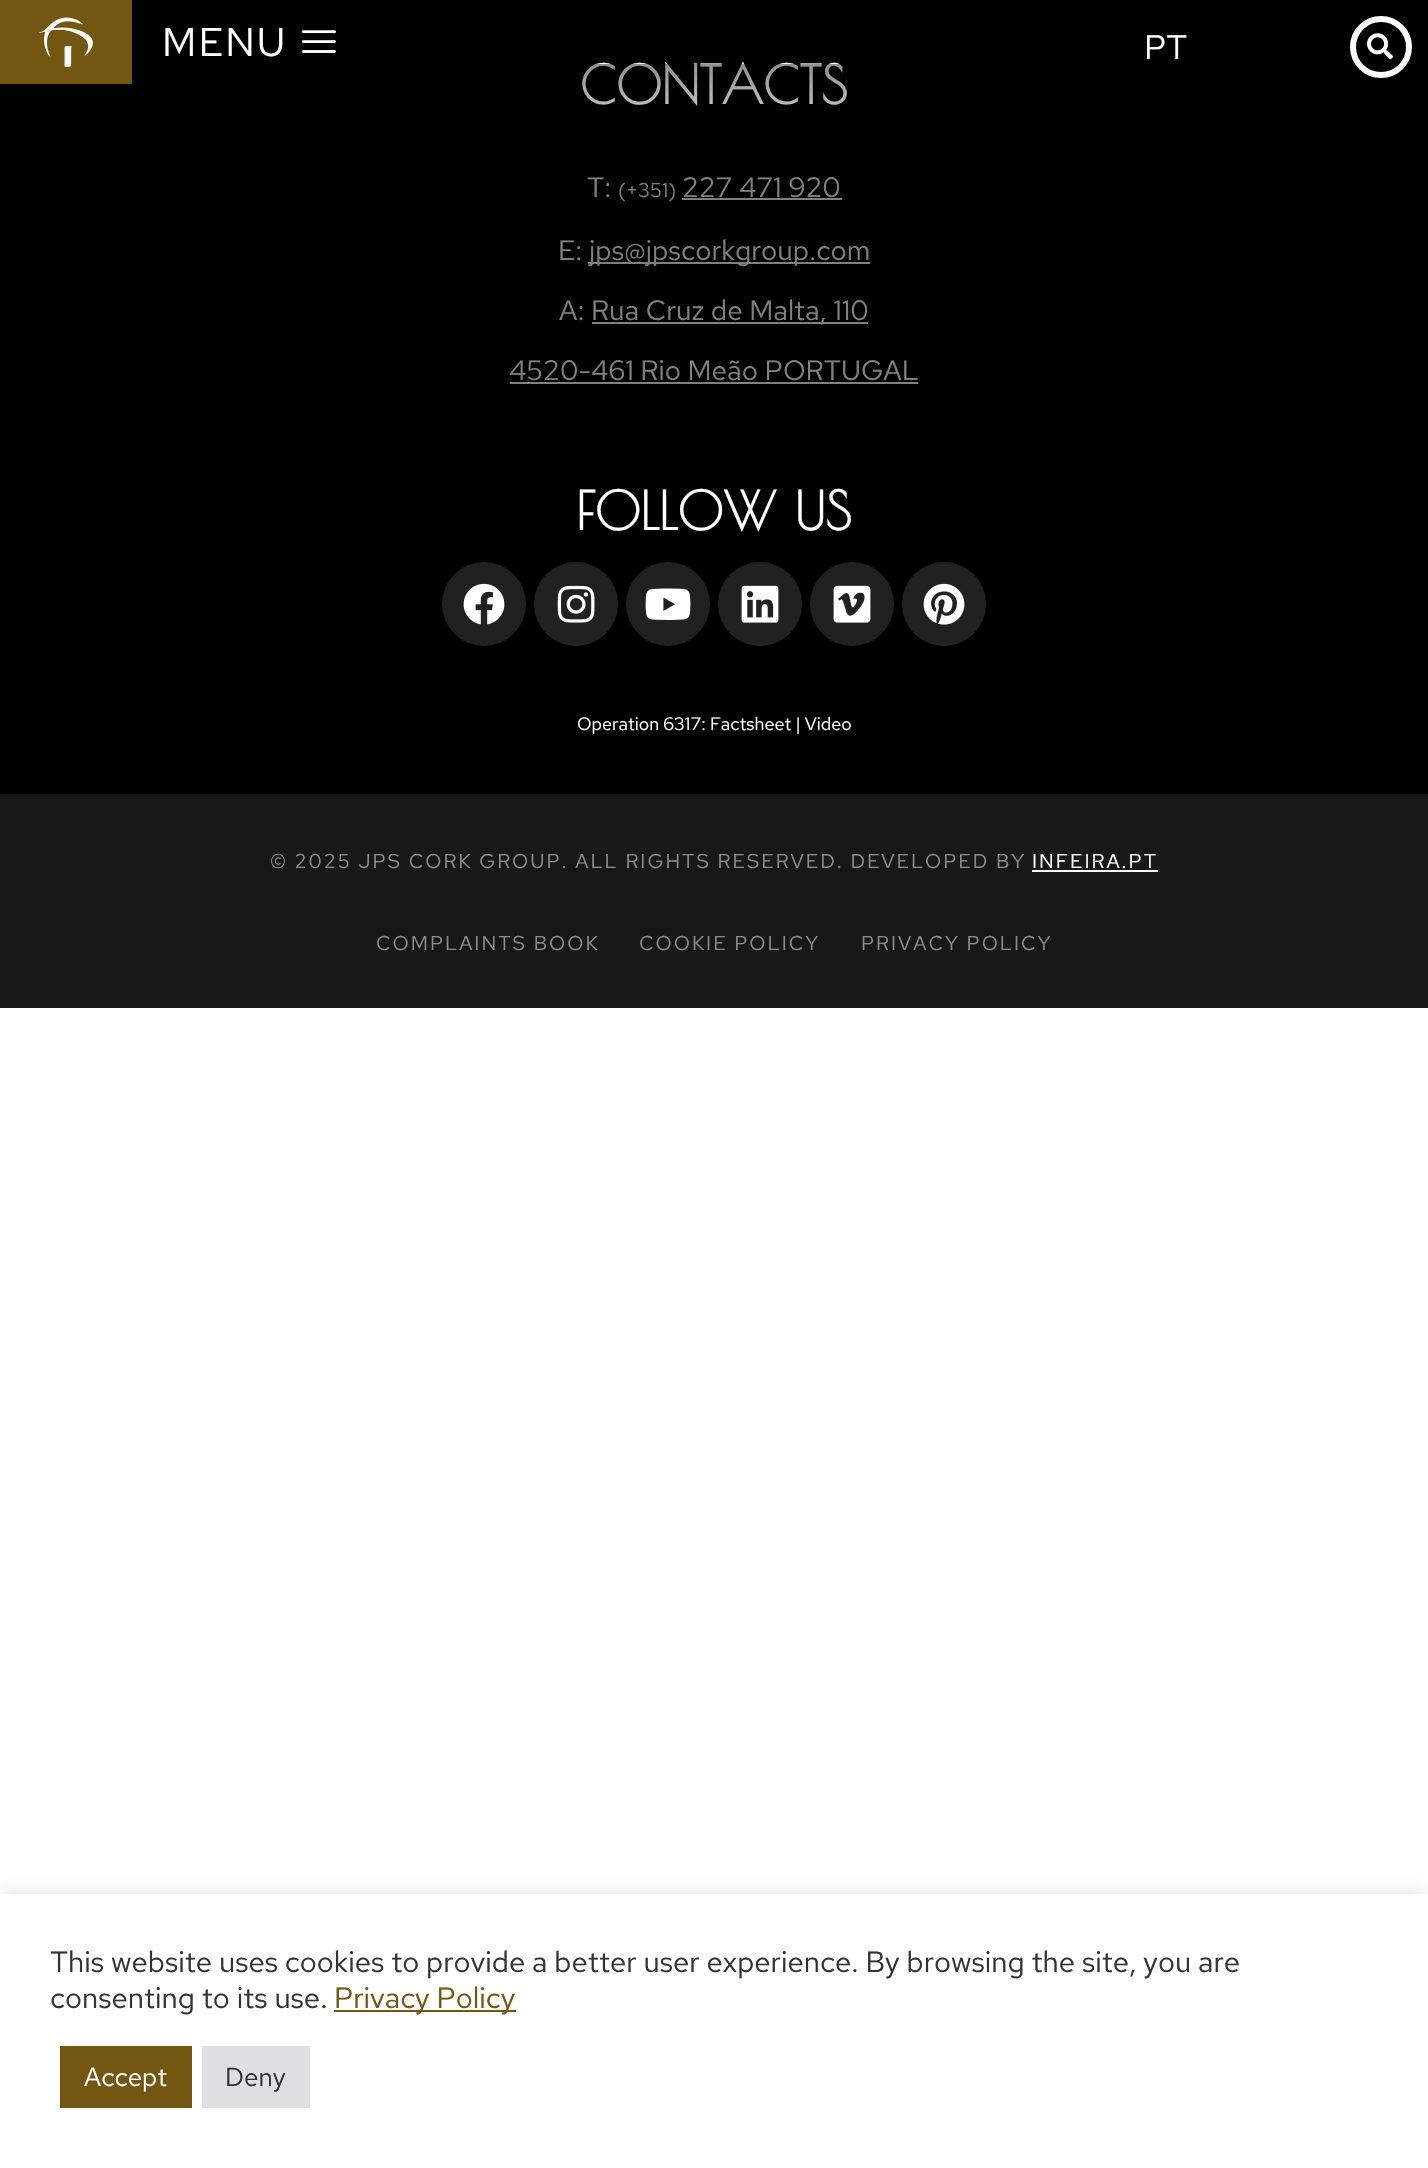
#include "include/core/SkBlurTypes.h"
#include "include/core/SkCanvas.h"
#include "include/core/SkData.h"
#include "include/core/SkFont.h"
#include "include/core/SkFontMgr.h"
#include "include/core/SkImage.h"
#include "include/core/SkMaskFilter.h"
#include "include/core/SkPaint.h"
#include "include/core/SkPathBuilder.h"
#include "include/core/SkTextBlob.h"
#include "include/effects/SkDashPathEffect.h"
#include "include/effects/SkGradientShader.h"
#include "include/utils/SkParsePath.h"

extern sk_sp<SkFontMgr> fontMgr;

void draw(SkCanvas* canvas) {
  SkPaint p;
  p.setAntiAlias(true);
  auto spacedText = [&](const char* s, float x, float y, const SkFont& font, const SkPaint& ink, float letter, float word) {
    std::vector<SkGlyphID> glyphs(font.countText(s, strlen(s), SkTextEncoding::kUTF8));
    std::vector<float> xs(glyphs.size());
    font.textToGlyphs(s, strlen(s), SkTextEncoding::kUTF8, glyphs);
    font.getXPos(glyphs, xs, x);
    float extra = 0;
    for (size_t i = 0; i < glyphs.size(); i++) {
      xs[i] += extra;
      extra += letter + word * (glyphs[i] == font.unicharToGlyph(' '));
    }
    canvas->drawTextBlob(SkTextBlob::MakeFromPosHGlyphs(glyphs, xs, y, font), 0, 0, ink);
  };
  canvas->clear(SK_ColorWHITE);
  p.setColor(SK_ColorBLACK);
  canvas->drawRect(SkRect::MakeLTRB(0, 0, 1428, 794), p);
  p.setColor(SkColorSetRGB(115, 86, 17));
  canvas->drawRect(SkRect::MakeLTRB(0, 0, 132, 84), p);
  canvas->drawImageRect(SkImages::DeferredFromEncodedData(SkData::MakeFromFileName("images/1.png")), SkRect::MakeLTRB(39, 17, 93, 67), SkSamplingOptions());
  canvas->drawImageRect(SkImages::DeferredFromEncodedData(SkData::MakeFromFileName("images/2.png")), SkRect::MakeLTRB(302, 30, 336, 53), SkSamplingOptions());
  p.setStyle(SkPaint::kStroke_Style);
  p.setStrokeWidth(6);
  p.setColor(SK_ColorWHITE);
  canvas->drawCircle(1381, 47, 28, p);
  canvas->drawImageRect(SkImages::DeferredFromEncodedData(SkData::MakeFromFileName("images/3.png")), SkRect::MakeLTRB(1367, 33, 1393, 60), SkSamplingOptions());
  p.setStyle(SkPaint::kFill_Style);
  p.setColor(SkColorSetRGB(128, 128, 128));
  canvas->drawRect(SkRect::MakeLTRB(682, 198, 842, 200), p);
  canvas->drawRect(SkRect::MakeLTRB(588, 262, 870, 264), p);
  canvas->drawRect(SkRect::MakeLTRB(592, 322, 868, 324), p);
  canvas->drawRect(SkRect::MakeLTRB(510, 382, 918, 384), p);
  p.setColor(SkColorSetRGB(33, 33, 33));
  canvas->drawCircle(484, 604, 42, p);
  canvas->drawImageRect(SkImages::DeferredFromEncodedData(SkData::MakeFromFileName("images/4.png")), SkRect::MakeLTRB(463, 583, 505, 625), SkSamplingOptions());
  canvas->drawCircle(576, 604, 42, p);
  canvas->drawImageRect(SkImages::DeferredFromEncodedData(SkData::MakeFromFileName("images/5.png")), SkRect::MakeLTRB(557, 585, 595, 623), SkSamplingOptions());
  canvas->drawCircle(668, 604, 42, p);
  canvas->drawImageRect(SkImages::DeferredFromEncodedData(SkData::MakeFromFileName("images/6.png")), SkRect::MakeLTRB(645, 588, 691, 620), SkSamplingOptions());
  canvas->drawCircle(760, 604, 42, p);
  canvas->drawImageRect(SkImages::DeferredFromEncodedData(SkData::MakeFromFileName("images/7.png")), SkRect::MakeLTRB(741, 585, 779, 623), SkSamplingOptions());
  canvas->drawCircle(852, 604, 42, p);
  canvas->drawImageRect(SkImages::DeferredFromEncodedData(SkData::MakeFromFileName("images/8.png")), SkRect::MakeLTRB(833, 585, 871, 623), SkSamplingOptions());
  canvas->drawCircle(944, 604, 42, p);
  canvas->drawImageRect(SkImages::DeferredFromEncodedData(SkData::MakeFromFileName("images/9.png")), SkRect::MakeLTRB(923, 583, 965, 625), SkSamplingOptions());
  p.setColor(SkColorSetRGB(24, 24, 24));
  canvas->drawRect(SkRect::MakeLTRB(0, 794, 1428, 1008), p);
  p.setColor(SK_ColorWHITE);
  canvas->drawRect(SkRect::MakeLTRB(1032, 870, 1158, 872), p);
  canvas->save();
  canvas->clipRect(SkRect::MakeLTRB(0, 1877, 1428, 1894));
  p.setColor(SkColorSetARGB(77, 172, 171, 171));
  p.setMaskFilter(SkMaskFilter::MakeBlur(kNormal_SkBlurStyle, 10));
  canvas->drawRect(SkRect::MakeLTRB(0, 1892, 1428, 2166), p);
  p.setMaskFilter(nullptr);
  canvas->restore();
  p.setColor(SkColorSetRGB(115, 86, 17));
  canvas->drawRect(SkRect::MakeLTRB(334, 2010, 516, 2012), p);
  canvas->drawRect(SkRect::MakeLTRB(60, 2046, 192, 2108), p);
  p.setColor(SkColorSetRGB(222, 223, 224));
  canvas->drawRect(SkRect::MakeLTRB(202, 2046, 310, 2108), p);
  SkFont font1(fontMgr->matchFamilyStyle("Red Hat Text", SkFontStyle::Normal()), 40);
  font1.setSubpixel(true);
  p.setColor(SK_ColorWHITE);
  spacedText("MENU", 162, 56, font1, p, 2, 0);
  SkFont font2(fontMgr->matchFamilyStyle("Red Hat Text", SkFontStyle::Normal()), 34);
  font2.setSubpixel(true);
  canvas->drawString("PT", 1144, 59, font2, p);
  SkFont font3(fontMgr->matchFamilyStyle("Poiret One", SkFontStyle::Bold()), 52);
  font3.setSubpixel(true);
  canvas->drawString("CONTACTS", 580, 104, font3, p);
  {
    const SkColor colors[] = {SkColorSetARGB(176, 0, 0, 0), SkColorSetARGB(0, 0, 0, 0)};
    const float stops[] = {0, 1};
    const SkPoint ends[] = {{714, 0}, {714, 168}};
    p.setShader(SkGradientShader::MakeLinear(ends, colors, stops, 2, SkTileMode::kClamp));
    p.setAlpha(255);
  }
  canvas->drawRect(SkRect::MakeLTRB(582, 64, 846, 105), p);
  SkFont font4(fontMgr->matchFamilyStyle("Red Hat Text", SkFontStyle::Normal()), 28);
  font4.setSubpixel(true);
  p.setShader(nullptr);
  p.setColor(SkColorSetRGB(128, 128, 128));
  canvas->drawString("T:", 587, 197, font4, p);
  SkFont font5(fontMgr->matchFamilyStyle("Red Hat Text", SkFontStyle::Normal()), 20);
  font5.setSubpixel(true);
  canvas->drawString("(+351)", 618, 197, font5, p);
  canvas->drawString("227 471 920", 682, 197, font4, p);
  canvas->drawString("E:", 558, 260, font4, p);
  canvas->drawString("jps@jpscorkgroup.com", 589, 260, font4, p);
  canvas->drawString("A:", 559, 320, font4, p);
  canvas->drawString("Rua Cruz de Malta, 110", 591, 320, font4, p);
  canvas->drawString("4520-461 Rio Meão PORTUGAL", 509, 380, font4, p);
  p.setColor(SK_ColorWHITE);
  canvas->drawString("FOLLOW US", 576, 530, font3, p);
  SkFont font6(fontMgr->matchFamilyStyle("Red Hat Text", SkFontStyle::Normal()), 18);
  font6.setSubpixel(true);
  canvas->drawString("Operation 6317: Factsheet | Video", 577, 730, font6, p);
  p.setColor(SkColorSetRGB(140, 140, 140));
  spacedText("© 2025 JPS CORK GROUP. ALL RIGHTS RESERVED. DEVELOPED BY", 270, 868, font5, p, 2, 0);
  p.setColor(SK_ColorWHITE);
  spacedText("INFEIRA.PT", 1032, 868, font5, p, 2, 0);
  p.setColor(SkColorSetRGB(140, 140, 140));
  spacedText("COMPLAINTS BOOK", 376, 950, font5, p, 2, 0);
  spacedText("COOKIE POLICY", 639, 950, font5, p, 2, 0);
  spacedText("PRIVACY POLICY", 861, 950, font5, p, 2, 0);
  SkFont font7(fontMgr->matchFamilyStyle("Red Hat Text", SkFontStyle::Normal()), 29.35f);
  font7.setSubpixel(true);
  p.setColor(SkColorSetRGB(51, 51, 51));
  canvas->drawString("This website uses cookies to provide a better user experience. By browsing the site, you are", 50, 1972, font7, p);
  canvas->drawString("consenting to its use.", 50, 2008, font7, p);
  p.setColor(SkColorSetRGB(115, 86, 17));
  canvas->drawString("Privacy Policy", 334, 2008, font7, p);
  SkFont font8(fontMgr->matchFamilyStyle("Red Hat Text", SkFontStyle::Normal()), 26);
  font8.setSubpixel(true);
  p.setColor(SK_ColorWHITE);
  canvas->drawString("Accept", 84, 2086, font8, p);
  p.setColor(SkColorSetRGB(51, 51, 51));
  canvas->drawString("Deny", 225, 2086, font8, p);
}
